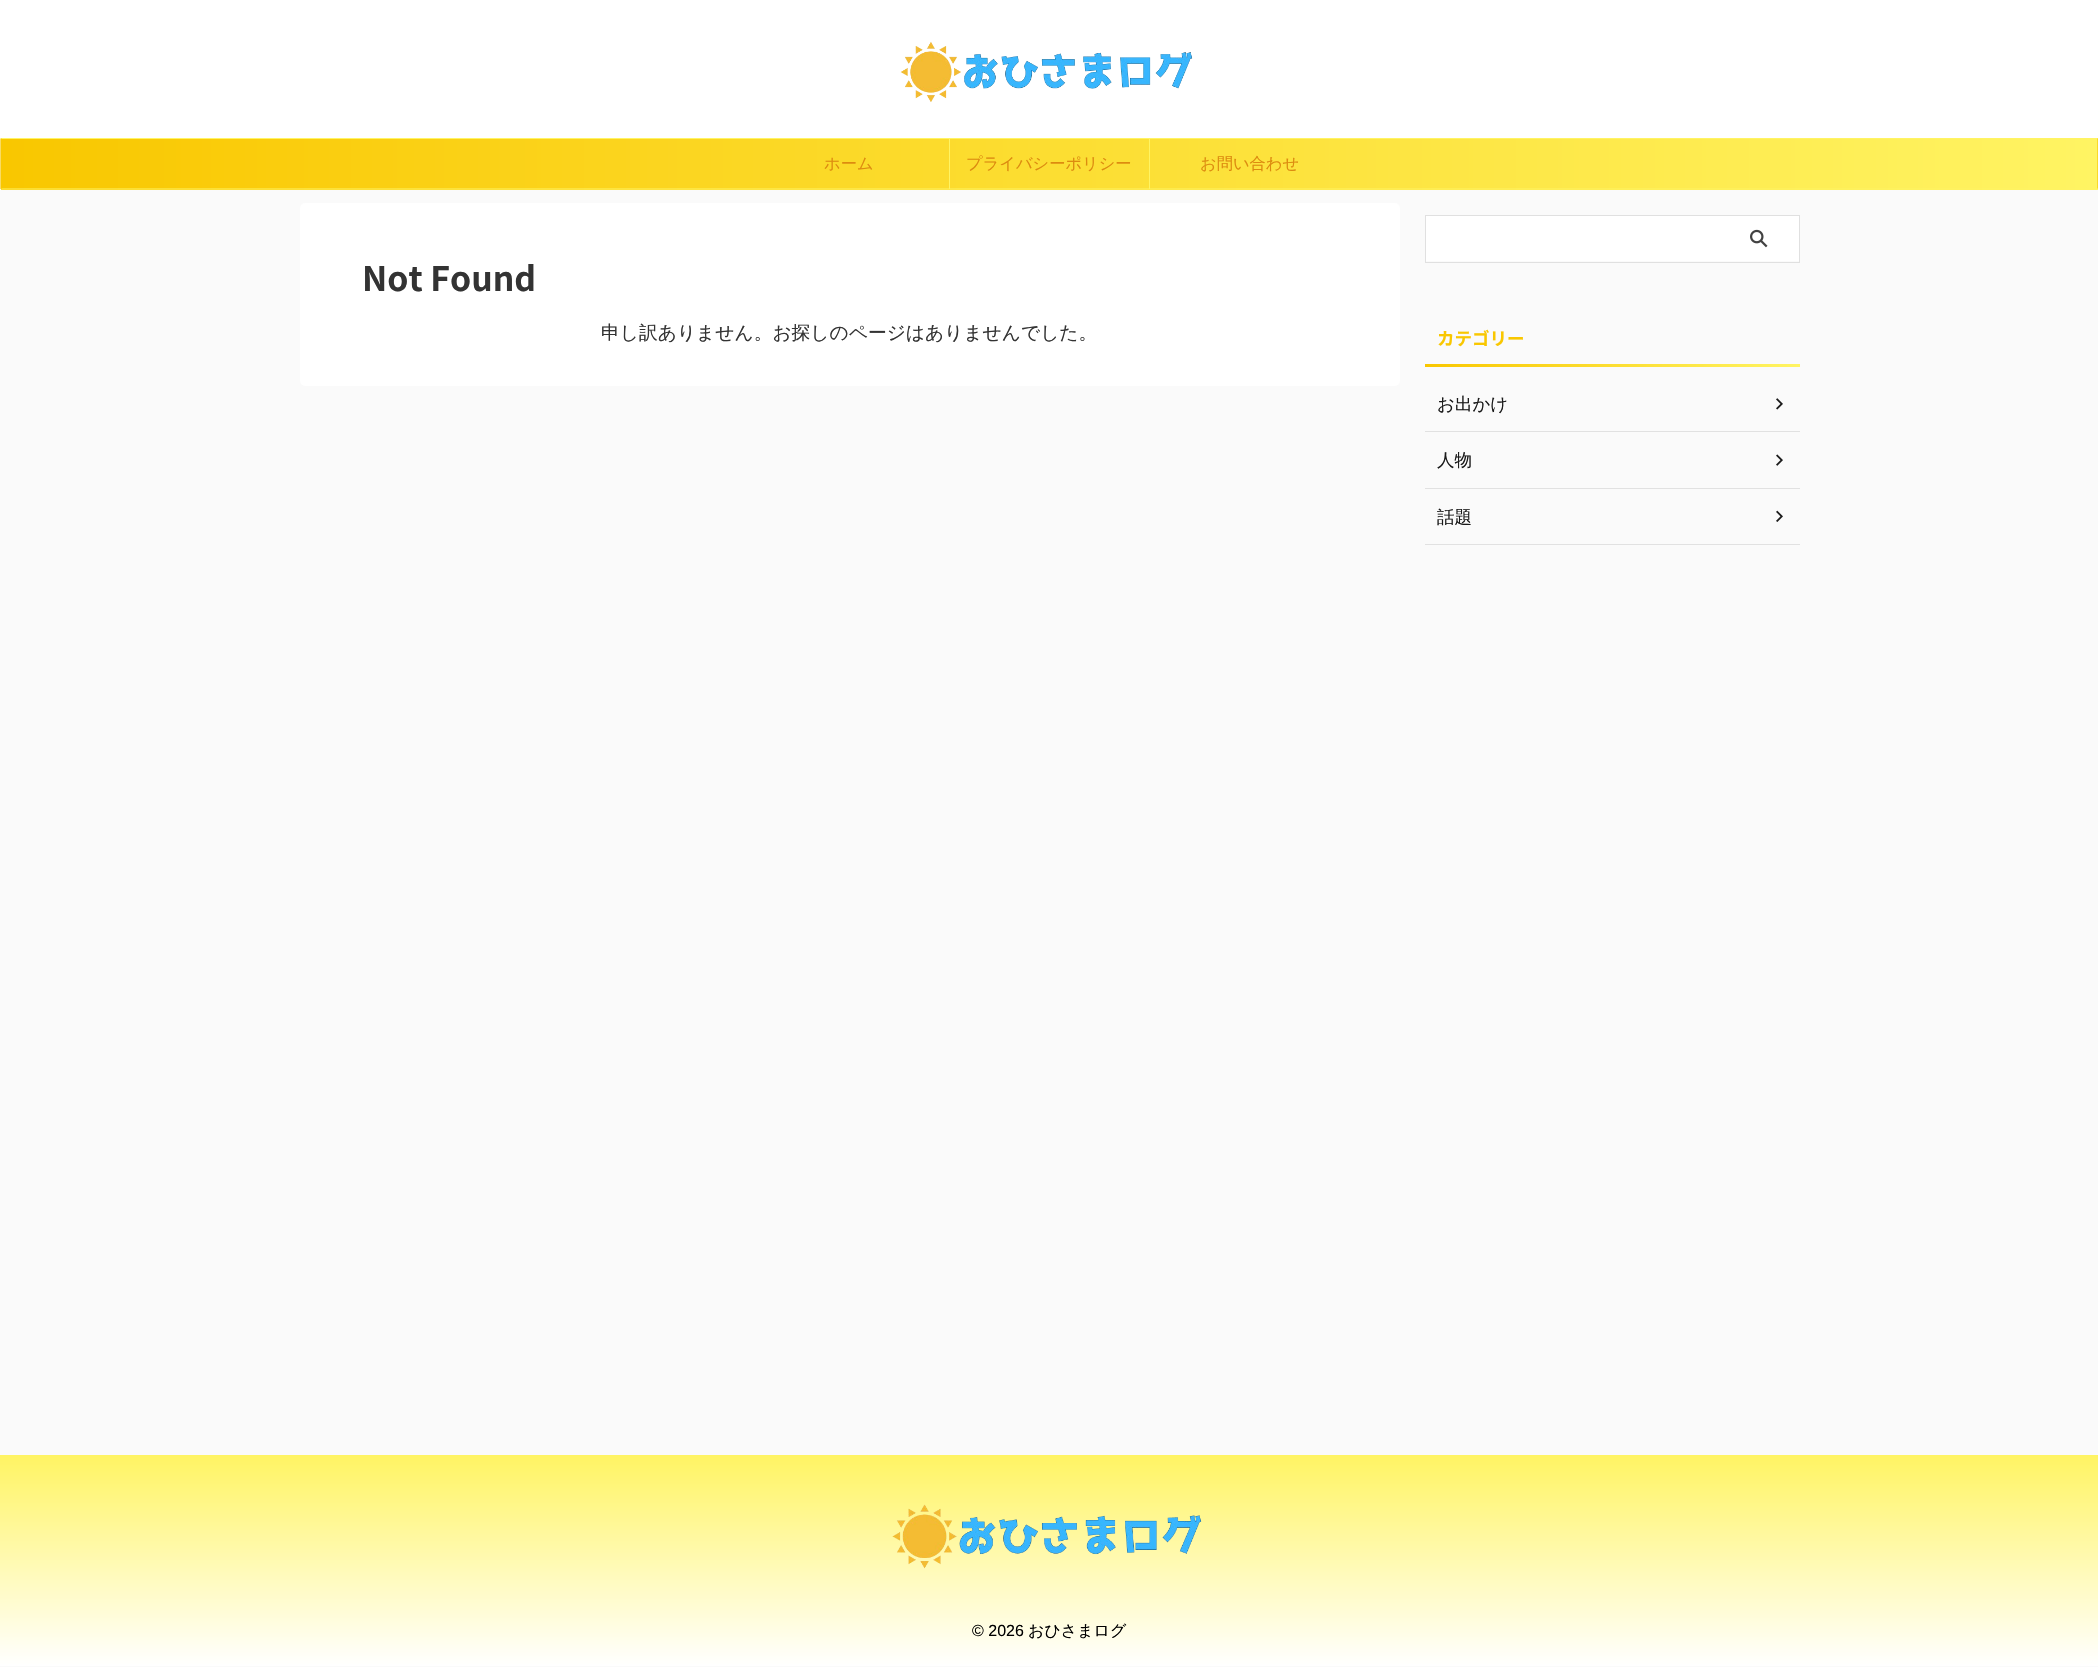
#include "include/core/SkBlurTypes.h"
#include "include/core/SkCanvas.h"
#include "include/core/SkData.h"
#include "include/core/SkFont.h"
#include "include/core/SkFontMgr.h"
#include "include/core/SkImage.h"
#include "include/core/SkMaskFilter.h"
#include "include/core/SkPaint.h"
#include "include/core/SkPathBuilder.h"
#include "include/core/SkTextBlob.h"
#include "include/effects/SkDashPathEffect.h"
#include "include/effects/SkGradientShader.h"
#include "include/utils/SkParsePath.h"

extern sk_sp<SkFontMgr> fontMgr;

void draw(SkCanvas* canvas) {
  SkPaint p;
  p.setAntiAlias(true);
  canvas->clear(SkColorSetRGB(250, 250, 250));
  p.setColor(SK_ColorWHITE);
  canvas->drawRect(SkRect::MakeLTRB(0, 0, 2098, 138), p);
  canvas->drawImageRect(SkImages::DeferredFromEncodedData(SkData::MakeFromFileName("images/1.png")), SkRect::MakeLTRB(900, 41, 1193, 102), SkSamplingOptions());
  {
    const SkColor colors[] = {SkColorSetRGB(255, 244, 99), SkColorSetRGB(249, 199, 0)};
    const float stops[] = {0, 1};
    const SkPoint ends[] = {{2098, 164}, {1.2f, 164}};
    p.setShader(SkGradientShader::MakeLinear(ends, colors, stops, 2, SkTileMode::kClamp));
    p.setAlpha(255);
  }
  canvas->drawRect(SkRect::MakeLTRB(1, 139, 2098, 190), p);
  p.setShader(nullptr);
  p.setColor(SkColorSetRGB(255, 244, 99));
  canvas->drawRect(SkRect::MakeLTRB(1, 138, 2098, 139), p);
  p.setStyle(SkPaint::kStroke_Style);
  p.setStrokeWidth(1.2f);
  p.setColor(SkColorSetRGB(249, 199, 0));
  canvas->drawPath(SkPathBuilder().moveTo(2098, 138.5f).lineTo(2098, 189).detach(), p);
  p.setColor(SkColorSetRGB(255, 244, 99));
  canvas->drawPath(SkPathBuilder().moveTo(2098, 189).lineTo(1, 189).detach(), p);
  p.setColor(SkColorSetRGB(249, 199, 0));
  canvas->drawPath(SkPathBuilder().moveTo(1, 189).lineTo(1, 138.5f).detach(), p);
  p.setStyle(SkPaint::kFill_Style);
  p.setColor(SkColorSetRGB(255, 244, 99));
  canvas->drawRect(SkRect::MakeLTRB(949, 139, 950, 189), p);
  canvas->drawRect(SkRect::MakeLTRB(1149, 139, 1150, 189), p);
  p.setColor(SK_ColorWHITE);
  canvas->drawRoundRect(SkRect::MakeLTRB(300, 203, 1400, 386), 5, 5, p);
  p.setStyle(SkPaint::kStroke_Style);
  p.setStrokeWidth(1);
  p.setColor(SkColorSetRGB(224, 224, 224));
  canvas->drawRect(SkRect::MakeLTRB(1425.5f, 215.5f, 1799.5f, 262.5f), p);
  p.setStyle(SkPaint::kFill_Style);
  p.setColor(SK_ColorWHITE);
  canvas->drawRect(SkRect::MakeLTRB(1426, 216, 1799, 261), p);
  canvas->drawImageRect(SkImages::DeferredFromEncodedData(SkData::MakeFromFileName("images/2.png")), SkRect::MakeLTRB(1750, 229, 1768, 248), SkSamplingOptions());
  {
    const SkColor colors[] = {SkColorSetRGB(255, 244, 99), SkColorSetRGB(249, 199, 0)};
    const float stops[] = {0, 1};
    const SkPoint ends[] = {{1800, 365}, {1425, 365}};
    p.setShader(SkGradientShader::MakeLinear(ends, colors, stops, 2, SkTileMode::kClamp));
    p.setAlpha(255);
  }
  canvas->drawRect(SkRect::MakeLTRB(1425, 364, 1800, 367), p);
  p.setShader(nullptr);
  p.setColor(SkColorSetRGB(225, 225, 225));
  canvas->drawRect(SkRect::MakeLTRB(1425, 431, 1800, 432), p);
  canvas->drawImageRect(SkImages::DeferredFromEncodedData(SkData::MakeFromFileName("images/3.png")), SkRect::MakeLTRB(1776, 398, 1783, 410), SkSamplingOptions());
  canvas->drawRect(SkRect::MakeLTRB(1425, 488, 1800, 489), p);
  canvas->drawImageRect(SkImages::DeferredFromEncodedData(SkData::MakeFromFileName("images/4.png")), SkRect::MakeLTRB(1776, 454, 1783, 466), SkSamplingOptions());
  canvas->drawRect(SkRect::MakeLTRB(1425, 544, 1800, 545), p);
  canvas->drawImageRect(SkImages::DeferredFromEncodedData(SkData::MakeFromFileName("images/5.png")), SkRect::MakeLTRB(1776, 510, 1783, 522), SkSamplingOptions());
  {
    const SkColor colors[] = {SkColorSetRGB(255, 244, 99), SK_ColorWHITE};
    const float stops[] = {0, 1};
    const SkPoint ends[] = {{1049, 1455}, {1049, 1666}};
    p.setShader(SkGradientShader::MakeLinear(ends, colors, stops, 2, SkTileMode::kClamp));
    p.setAlpha(255);
  }
  canvas->drawRect(SkRect::MakeLTRB(0, 1455, 2098, 1666), p);
  canvas->drawImageRect(SkImages::DeferredFromEncodedData(SkData::MakeFromFileName("images/6.png")), SkRect::MakeLTRB(892, 1504, 1202, 1569), SkSamplingOptions());
  SkFont font1(fontMgr->matchFamilyStyle("WenQuanYi Zen Hei", SkFontStyle(500, SkFontStyle::kNormal_Width, SkFontStyle::kUpright_Slant)), 16.25f);
  font1.setSubpixel(true);
  p.setShader(nullptr);
  p.setColor(SkColorSetRGB(221, 139, 15));
  canvas->drawString("ホーム", 824, 169, font1, p);
  canvas->drawString("プライバシーポリシー", 966, 169, font1, p);
  canvas->drawString("お問い合わせ", 1200, 169, font1, p);
  SkFont font2(fontMgr->matchFamilyStyle("Noto Sans JP", SkFontStyle::Bold()), 33.75f);
  font2.setSubpixel(true);
  p.setColor(SkColorSetRGB(51, 51, 51));
  canvas->drawString("Not Found", 362, 291, font2, p);
  SkFont font3(fontMgr->matchFamilyStyle("WenQuanYi Zen Hei", SkFontStyle(500, SkFontStyle::kNormal_Width, SkFontStyle::kUpright_Slant)), 18.75f);
  font3.setSubpixel(true);
  canvas->drawString("申し訳ありません。お探しのページはありませんでした。", 601, 339, font3, p);
  SkFont font4(fontMgr->matchFamilyStyle("Noto Sans JP", SkFontStyle::Bold()), 17.5f);
  font4.setSubpixel(true);
  p.setColor(SkColorSetRGB(249, 199, 0));
  canvas->drawString("カテゴリー", 1437, 345, font4, p);
  SkFont font5(fontMgr->matchFamilyStyle("WenQuanYi Zen Hei", SkFontStyle(500, SkFontStyle::kNormal_Width, SkFontStyle::kUpright_Slant)), 17.5f);
  font5.setSubpixel(true);
  p.setColor(SkColorSetRGB(26, 26, 26));
  canvas->drawString("お出かけ", 1437, 410, font5, p);
  canvas->drawString("人物", 1437, 466, font5, p);
  canvas->drawString("話題", 1437, 523, font5, p);
  SkFont font6(fontMgr->matchFamilyStyle("Liberation Sans", SkFontStyle::Normal()), 16);
  font6.setSubpixel(true);
  p.setColor(SK_ColorBLACK);
  canvas->drawString("© 2026", 972, 1636, font6, p);
  SkFont font7(fontMgr->matchFamilyStyle("WenQuanYi Zen Hei", SkFontStyle(500, SkFontStyle::kNormal_Width, SkFontStyle::kUpright_Slant)), 16);
  font7.setSubpixel(true);
  canvas->drawString("おひさまログ", 1028, 1636, font7, p);
}
